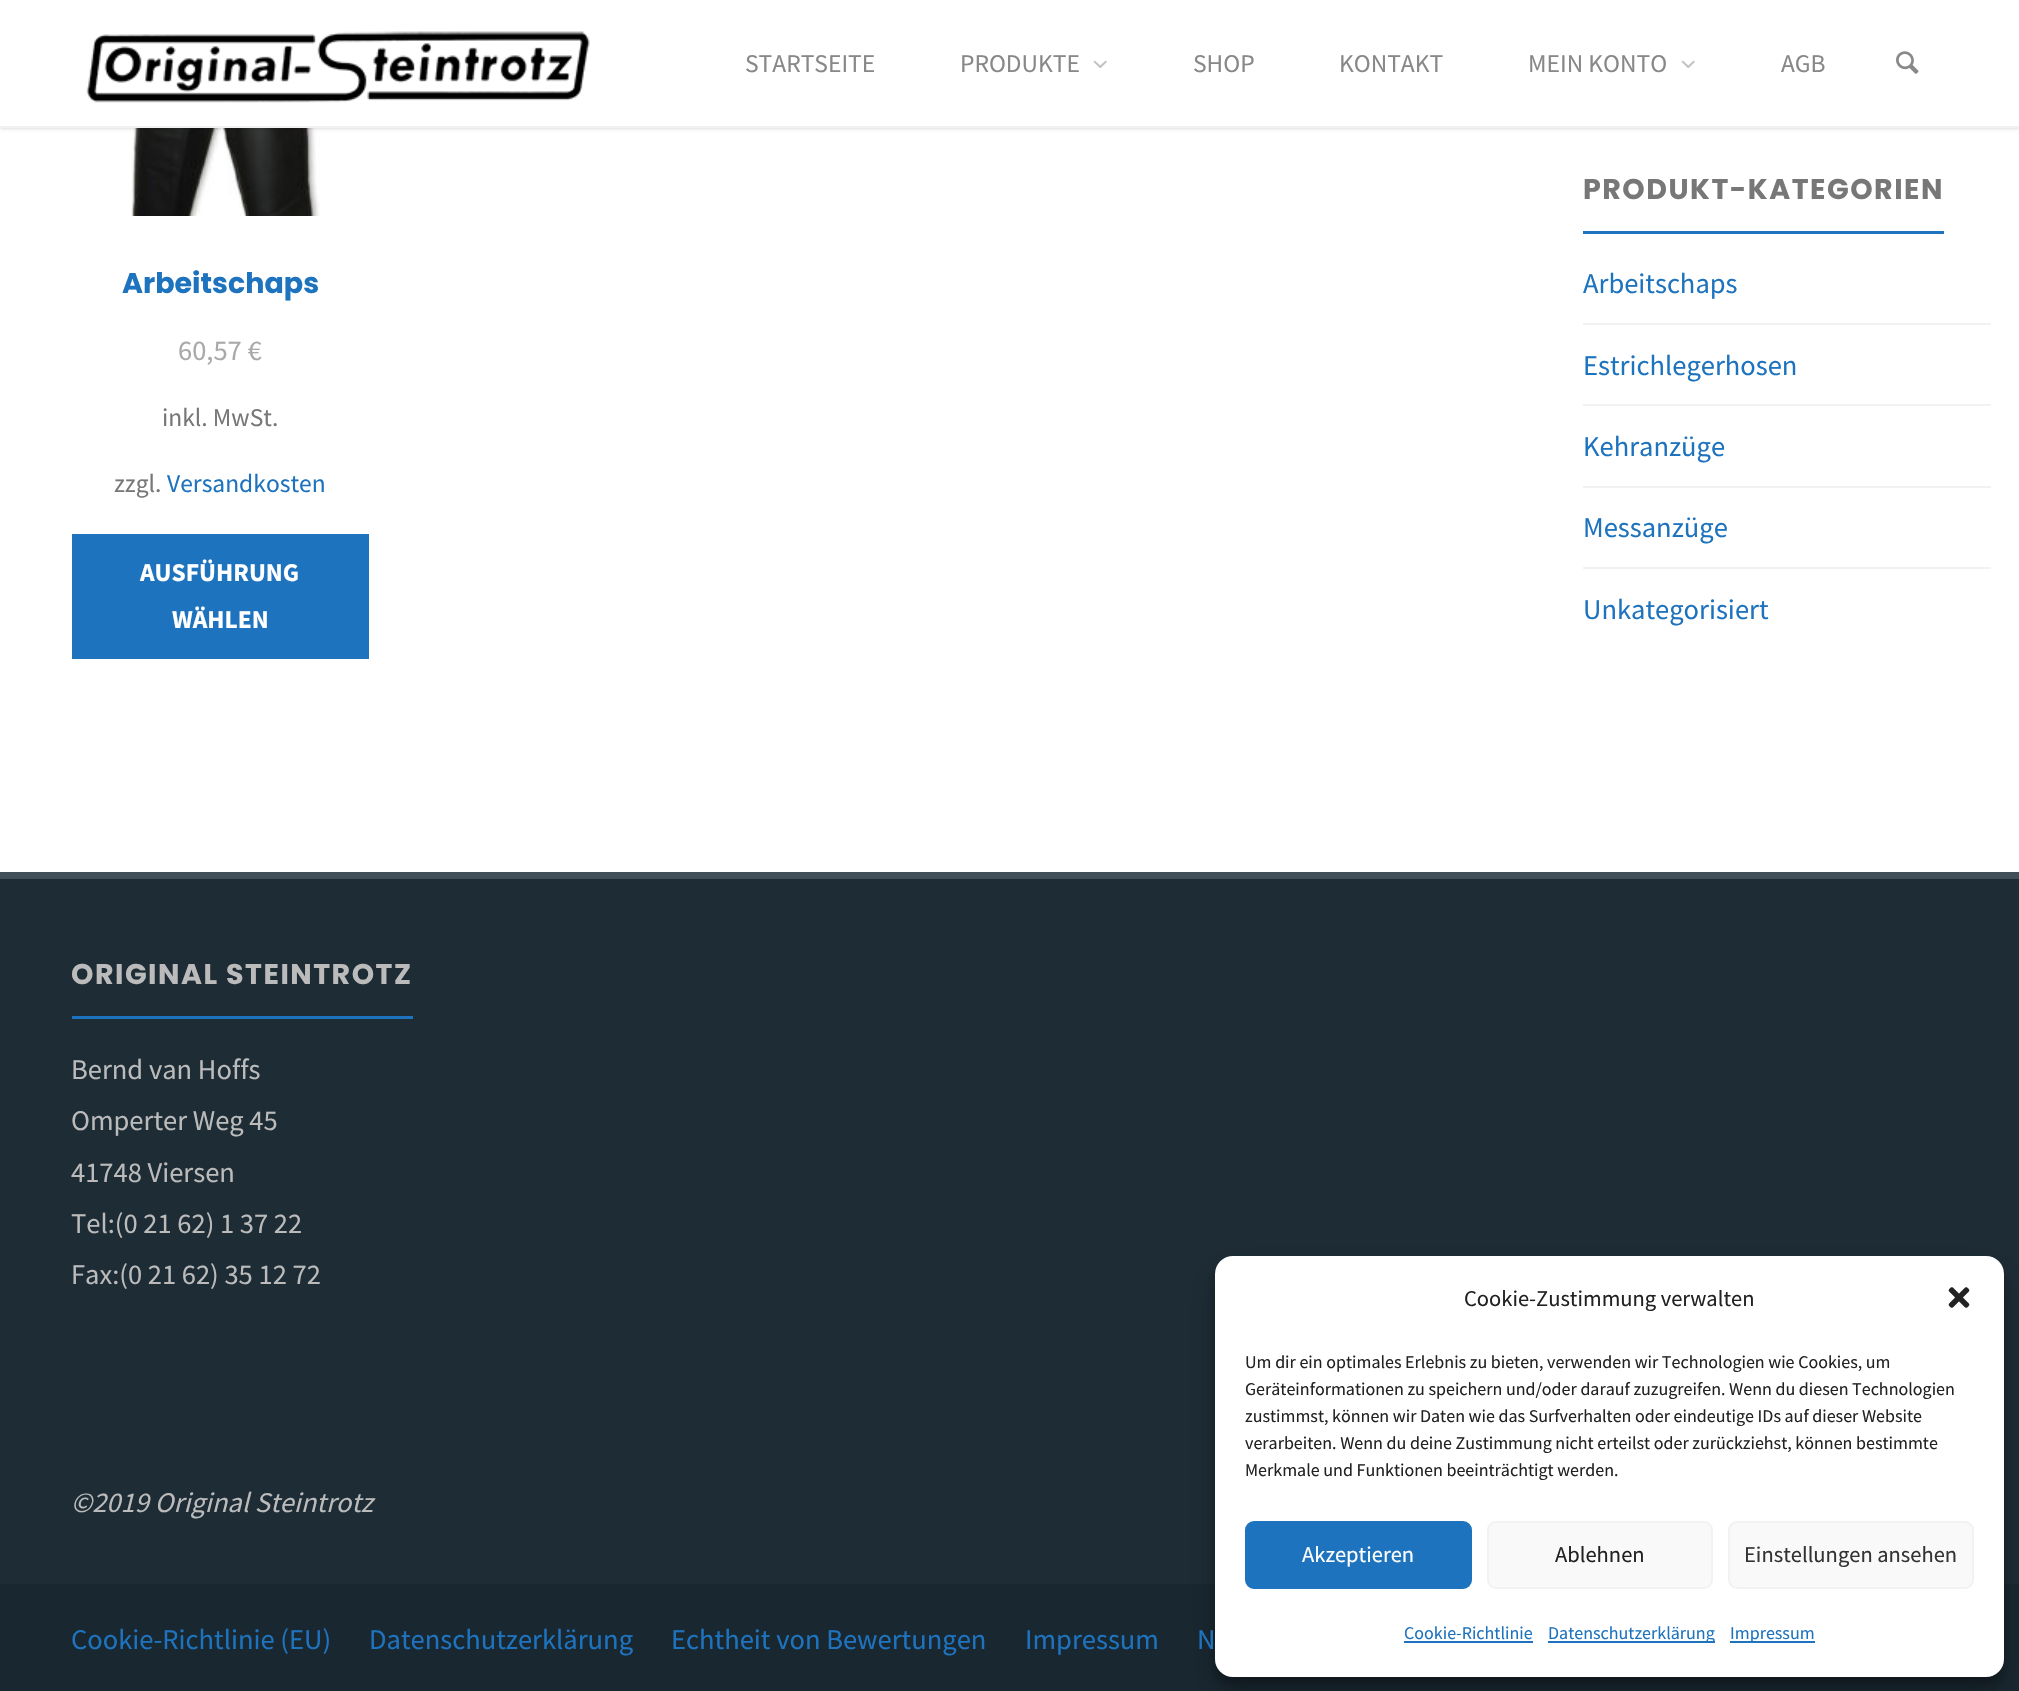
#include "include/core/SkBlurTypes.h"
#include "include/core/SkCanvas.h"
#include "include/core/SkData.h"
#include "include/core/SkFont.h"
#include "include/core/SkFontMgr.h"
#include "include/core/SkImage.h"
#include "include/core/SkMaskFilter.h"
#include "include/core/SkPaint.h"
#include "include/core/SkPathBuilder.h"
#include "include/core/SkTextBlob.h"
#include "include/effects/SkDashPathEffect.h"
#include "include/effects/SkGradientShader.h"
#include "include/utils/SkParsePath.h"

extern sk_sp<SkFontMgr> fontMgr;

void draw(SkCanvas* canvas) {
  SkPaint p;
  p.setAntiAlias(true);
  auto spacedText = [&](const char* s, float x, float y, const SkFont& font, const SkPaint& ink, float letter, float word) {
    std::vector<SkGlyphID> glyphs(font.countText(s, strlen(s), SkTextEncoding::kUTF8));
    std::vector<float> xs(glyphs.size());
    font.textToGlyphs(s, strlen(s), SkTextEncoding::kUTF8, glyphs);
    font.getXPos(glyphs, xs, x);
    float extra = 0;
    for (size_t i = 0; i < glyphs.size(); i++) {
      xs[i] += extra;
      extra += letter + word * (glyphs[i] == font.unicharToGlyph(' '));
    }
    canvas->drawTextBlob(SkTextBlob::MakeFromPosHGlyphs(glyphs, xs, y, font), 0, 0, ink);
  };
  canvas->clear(SK_ColorWHITE);
  canvas->drawImageRect(SkImages::DeferredFromEncodedData(SkData::MakeFromFileName("images/4.png")), SkRect::MakeLTRB(131, 128, 320, 216), SkSamplingOptions());
  p.setColor(SkColorSetARGB(51, 0, 0, 0));
  p.setMaskFilter(SkMaskFilter::MakeBlur(kNormal_SkBlurStyle, 2));
  canvas->drawRect(SkRect::MakeLTRB(0, 0, 2019, 128), p);
  p.setMaskFilter(nullptr);
  p.setColor(SK_ColorWHITE);
  canvas->drawRect(SkRect::MakeLTRB(0, 0, 2019, 126), p);
  p.setColor(SkColorSetRGB(242, 242, 242));
  canvas->drawRect(SkRect::MakeLTRB(0, 126, 2019, 128), p);
  canvas->drawImageRect(SkImages::DeferredFromEncodedData(SkData::MakeFromFileName("images/1.png")), SkRect::MakeLTRB(86, 31, 590, 103), SkSamplingOptions());
  canvas->drawImageRect(SkImages::DeferredFromEncodedData(SkData::MakeFromFileName("images/2.png")), SkRect::MakeLTRB(1093, 60, 1107, 68), SkSamplingOptions());
  canvas->drawImageRect(SkImages::DeferredFromEncodedData(SkData::MakeFromFileName("images/2.png")), SkRect::MakeLTRB(1681, 60, 1695, 68), SkSamplingOptions());
  canvas->drawImageRect(SkImages::DeferredFromEncodedData(SkData::MakeFromFileName("images/3.png")), SkRect::MakeLTRB(1896, 51, 1919, 74), SkSamplingOptions());
  p.setColor(SkColorSetRGB(30, 115, 190));
  canvas->drawRect(SkRect::MakeLTRB(72, 534, 369, 659), p);
  canvas->drawRect(SkRect::MakeLTRB(1583, 231, 1944, 234), p);
  p.setColor(SkColorSetRGB(242, 242, 242));
  canvas->drawRect(SkRect::MakeLTRB(1583, 323, 1991, 325), p);
  canvas->drawRect(SkRect::MakeLTRB(1583, 404, 1991, 406), p);
  canvas->drawRect(SkRect::MakeLTRB(1583, 486, 1991, 488), p);
  canvas->drawRect(SkRect::MakeLTRB(1583, 567, 1991, 569), p);
  p.setColor(SkColorSetRGB(30, 44, 53));
  canvas->drawRect(SkRect::MakeLTRB(0, 879, 2019, 1584), p);
  p.setColor(SkColorSetRGB(65, 79, 88));
  canvas->drawRect(SkRect::MakeLTRB(0, 872, 2019, 879), p);
  p.setColor(SkColorSetRGB(30, 115, 190));
  canvas->drawRect(SkRect::MakeLTRB(72, 1016, 413, 1019), p);
  p.setColor(SkColorSetRGB(25, 39, 48));
  canvas->drawRect(SkRect::MakeLTRB(0, 1584, 2019, 1691), p);
  p.setColor(SkColorSetARGB(59, 0, 0, 0));
  p.setMaskFilter(SkMaskFilter::MakeBlur(kNormal_SkBlurStyle, 4.5f));
  canvas->drawRoundRect(SkRect::MakeLTRB(1215, 1265, 2004, 1686), 18, 18, p);
  p.setMaskFilter(nullptr);
  p.setColor(SkColorSetARGB(48, 0, 0, 0));
  p.setMaskFilter(SkMaskFilter::MakeBlur(kNormal_SkBlurStyle, 15));
  canvas->drawRoundRect(SkRect::MakeLTRB(1215, 1271, 2004, 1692), 18, 18, p);
  p.setMaskFilter(nullptr);
  p.setColor(SK_ColorWHITE);
  canvas->drawRoundRect(SkRect::MakeLTRB(1215, 1256, 2004, 1677), 18, 18, p);
  canvas->drawImageRect(SkImages::DeferredFromEncodedData(SkData::MakeFromFileName("images/5.png")), SkRect::MakeLTRB(1948, 1287, 1970, 1308), SkSamplingOptions());
  p.setColor(SkColorSetRGB(30, 115, 190));
  canvas->drawRoundRect(SkRect::MakeLTRB(1246, 1522, 1471, 1588), 8, 8, p);
  p.setStyle(SkPaint::kStroke_Style);
  p.setStrokeWidth(2);
  canvas->drawRoundRect(SkRect::MakeLTRB(1246, 1522, 1471, 1588), 8, 8, p);
  p.setStyle(SkPaint::kFill_Style);
  p.setColor(SkColorSetRGB(249, 249, 249));
  canvas->drawRoundRect(SkRect::MakeLTRB(1488, 1522, 1712, 1588), 8, 8, p);
  p.setStyle(SkPaint::kStroke_Style);
  p.setColor(SkColorSetRGB(242, 242, 242));
  canvas->drawRoundRect(SkRect::MakeLTRB(1488, 1522, 1712, 1588), 8, 8, p);
  p.setStyle(SkPaint::kFill_Style);
  p.setColor(SkColorSetRGB(249, 249, 249));
  canvas->drawRoundRect(SkRect::MakeLTRB(1729, 1522, 1973, 1588), 8, 8, p);
  p.setStyle(SkPaint::kStroke_Style);
  p.setColor(SkColorSetRGB(242, 242, 242));
  canvas->drawRoundRect(SkRect::MakeLTRB(1729, 1522, 1973, 1588), 8, 8, p);
  p.setStyle(SkPaint::kFill_Style);
  p.setColor(SkColorSetRGB(30, 115, 190));
  canvas->drawRect(SkRect::MakeLTRB(1404, 1641, 1533, 1643), p);
  canvas->drawRect(SkRect::MakeLTRB(1548, 1641, 1715, 1643), p);
  canvas->drawRect(SkRect::MakeLTRB(1730, 1641, 1815, 1643), p);
  SkFont font1(fontMgr->matchFamilyStyle("Source Sans Pro", SkFontStyle::Normal()), 25.5f);
  font1.setSubpixel(true);
  p.setColor(SkColorSetRGB(136, 136, 136));
  canvas->drawString("STARTSEITE", 745, 72, font1, p);
  canvas->drawString("PRODUKTE", 960, 72, font1, p);
  canvas->drawString("SHOP", 1193, 72, font1, p);
  canvas->drawString("KONTAKT", 1339, 72, font1, p);
  canvas->drawString("MEIN KONTO", 1528, 72, font1, p);
  canvas->drawString("AGB", 1781, 72, font1, p);
  SkFont font2(fontMgr->matchFamilyStyle("Poppins", SkFontStyle::Bold()), 28.5f);
  font2.setSubpixel(true);
  p.setColor(SkColorSetRGB(30, 115, 190));
  canvas->drawString("Arbeitschaps", 122, 293, font2, p);
  SkFont font3(fontMgr->matchFamilyStyle("Source Sans Pro", SkFontStyle::Normal()), 28.5f);
  font3.setSubpixel(true);
  p.setColor(SkColorSetRGB(169, 169, 169));
  canvas->drawString("60,57 €", 178, 360, font3, p);
  p.setColor(SkColorSetRGB(119, 119, 119));
  canvas->drawString("inkl. MwSt.", 162, 426, font1, p);
  canvas->drawString("zzgl.", 114, 492, font1, p);
  p.setColor(SkColorSetRGB(30, 115, 190));
  canvas->drawString("Versandkosten", 167, 492, font1, p);
  SkFont font4(fontMgr->matchFamilyStyle("Source Sans Pro", SkFontStyle::Bold()), 25.5f);
  font4.setSubpixel(true);
  p.setColor(SK_ColorWHITE);
  canvas->drawString("AUSFÜHRUNG", 140, 581, font4, p);
  canvas->drawString("WÄHLEN", 172, 628, font4, p);
  p.setColor(SkColorSetRGB(119, 119, 119));
  spacedText("PRODUKT-KATEGORIEN", 1583, 199, font2, p, 1.5f, 0);
  p.setColor(SkColorSetRGB(30, 115, 190));
  canvas->drawString("Arbeitschaps", 1583, 293, font3, p);
  canvas->drawString("Estrichlegerhosen", 1583, 375, font3, p);
  canvas->drawString("Kehranzüge", 1583, 456, font3, p);
  canvas->drawString("Messanzüge", 1583, 537, font3, p);
  canvas->drawString("Unkategorisiert", 1583, 619, font3, p);
  p.setColor(SkColorSetRGB(187, 187, 187));
  spacedText("ORIGINAL STEINTROTZ", 71, 984, font2, p, 1.5f, 0);
  canvas->drawString("Bernd van Hoffs", 71, 1079, font3, p);
  canvas->drawString("Omperter Weg 45", 71, 1130, font3, p);
  canvas->drawString("41748 Viersen", 71, 1182, font3, p);
  canvas->drawString("Tel:(0 21 62) 1 37 22", 71, 1233, font3, p);
  canvas->drawString("Fax:(0 21 62) 35 12 72", 71, 1284, font3, p);
  SkFont font5(fontMgr->matchFamilyStyle("Source Sans Pro", SkFontStyle::Italic()), 28.5f);
  font5.setSubpixel(true);
  canvas->drawString("©2019 Original Steintrotz", 71, 1512, font5, p);
  p.setColor(SkColorSetRGB(30, 115, 190));
  canvas->drawString("Cookie-Richtlinie (EU)", 71, 1649, font3, p);
  canvas->drawString("Datenschutzerklärung", 369, 1649, font3, p);
  canvas->drawString("Echtheit von Bewertungen", 671, 1649, font3, p);
  canvas->drawString("Impressum", 1025, 1649, font3, p);
  canvas->drawString("N", 1197, 1649, font3, p);
  SkFont font6(fontMgr->matchFamilyStyle("Source Sans Pro", SkFontStyle::Normal()), 22.5f);
  font6.setSubpixel(true);
  p.setColor(SkColorSetRGB(34, 34, 34));
  canvas->drawString("Cookie-Zustimmung verwalten", 1464, 1306, font6, p);
  SkFont font7(fontMgr->matchFamilyStyle("Source Sans Pro", SkFontStyle::Normal()), 18);
  font7.setSubpixel(true);
  canvas->drawString("Um dir ein optimales Erlebnis zu bieten, verwenden wir Technologien wie Cookies, um", 1245, 1368, font7, p);
  canvas->drawString("Geräteinformationen zu speichern und/oder darauf zuzugreifen. Wenn du diesen Technologien", 1245, 1395, font7, p);
  canvas->drawString("zustimmst, können wir Daten wie das Surfverhalten oder eindeutige IDs auf dieser Website", 1245, 1422, font7, p);
  canvas->drawString("verarbeiten. Wenn du deine Zustimmung nicht erteilst oder zurückziehst, können bestimmte", 1245, 1449, font7, p);
  canvas->drawString("Merkmale und Funktionen beeinträchtigt werden.", 1245, 1476, font7, p);
  p.setColor(SK_ColorWHITE);
  canvas->drawString("Akzeptieren", 1302, 1562, font6, p);
  p.setColor(SkColorSetRGB(34, 34, 34));
  canvas->drawString("Ablehnen", 1555, 1562, font6, p);
  p.setColor(SkColorSetRGB(51, 51, 51));
  canvas->drawString("Einstellungen ansehen", 1744, 1562, font6, p);
  p.setColor(SkColorSetRGB(30, 115, 190));
  canvas->drawString("Cookie-Richtlinie", 1404, 1639, font7, p);
  canvas->drawString("Datenschutzerklärung", 1548, 1639, font7, p);
  canvas->drawString("Impressum", 1730, 1639, font7, p);
}
